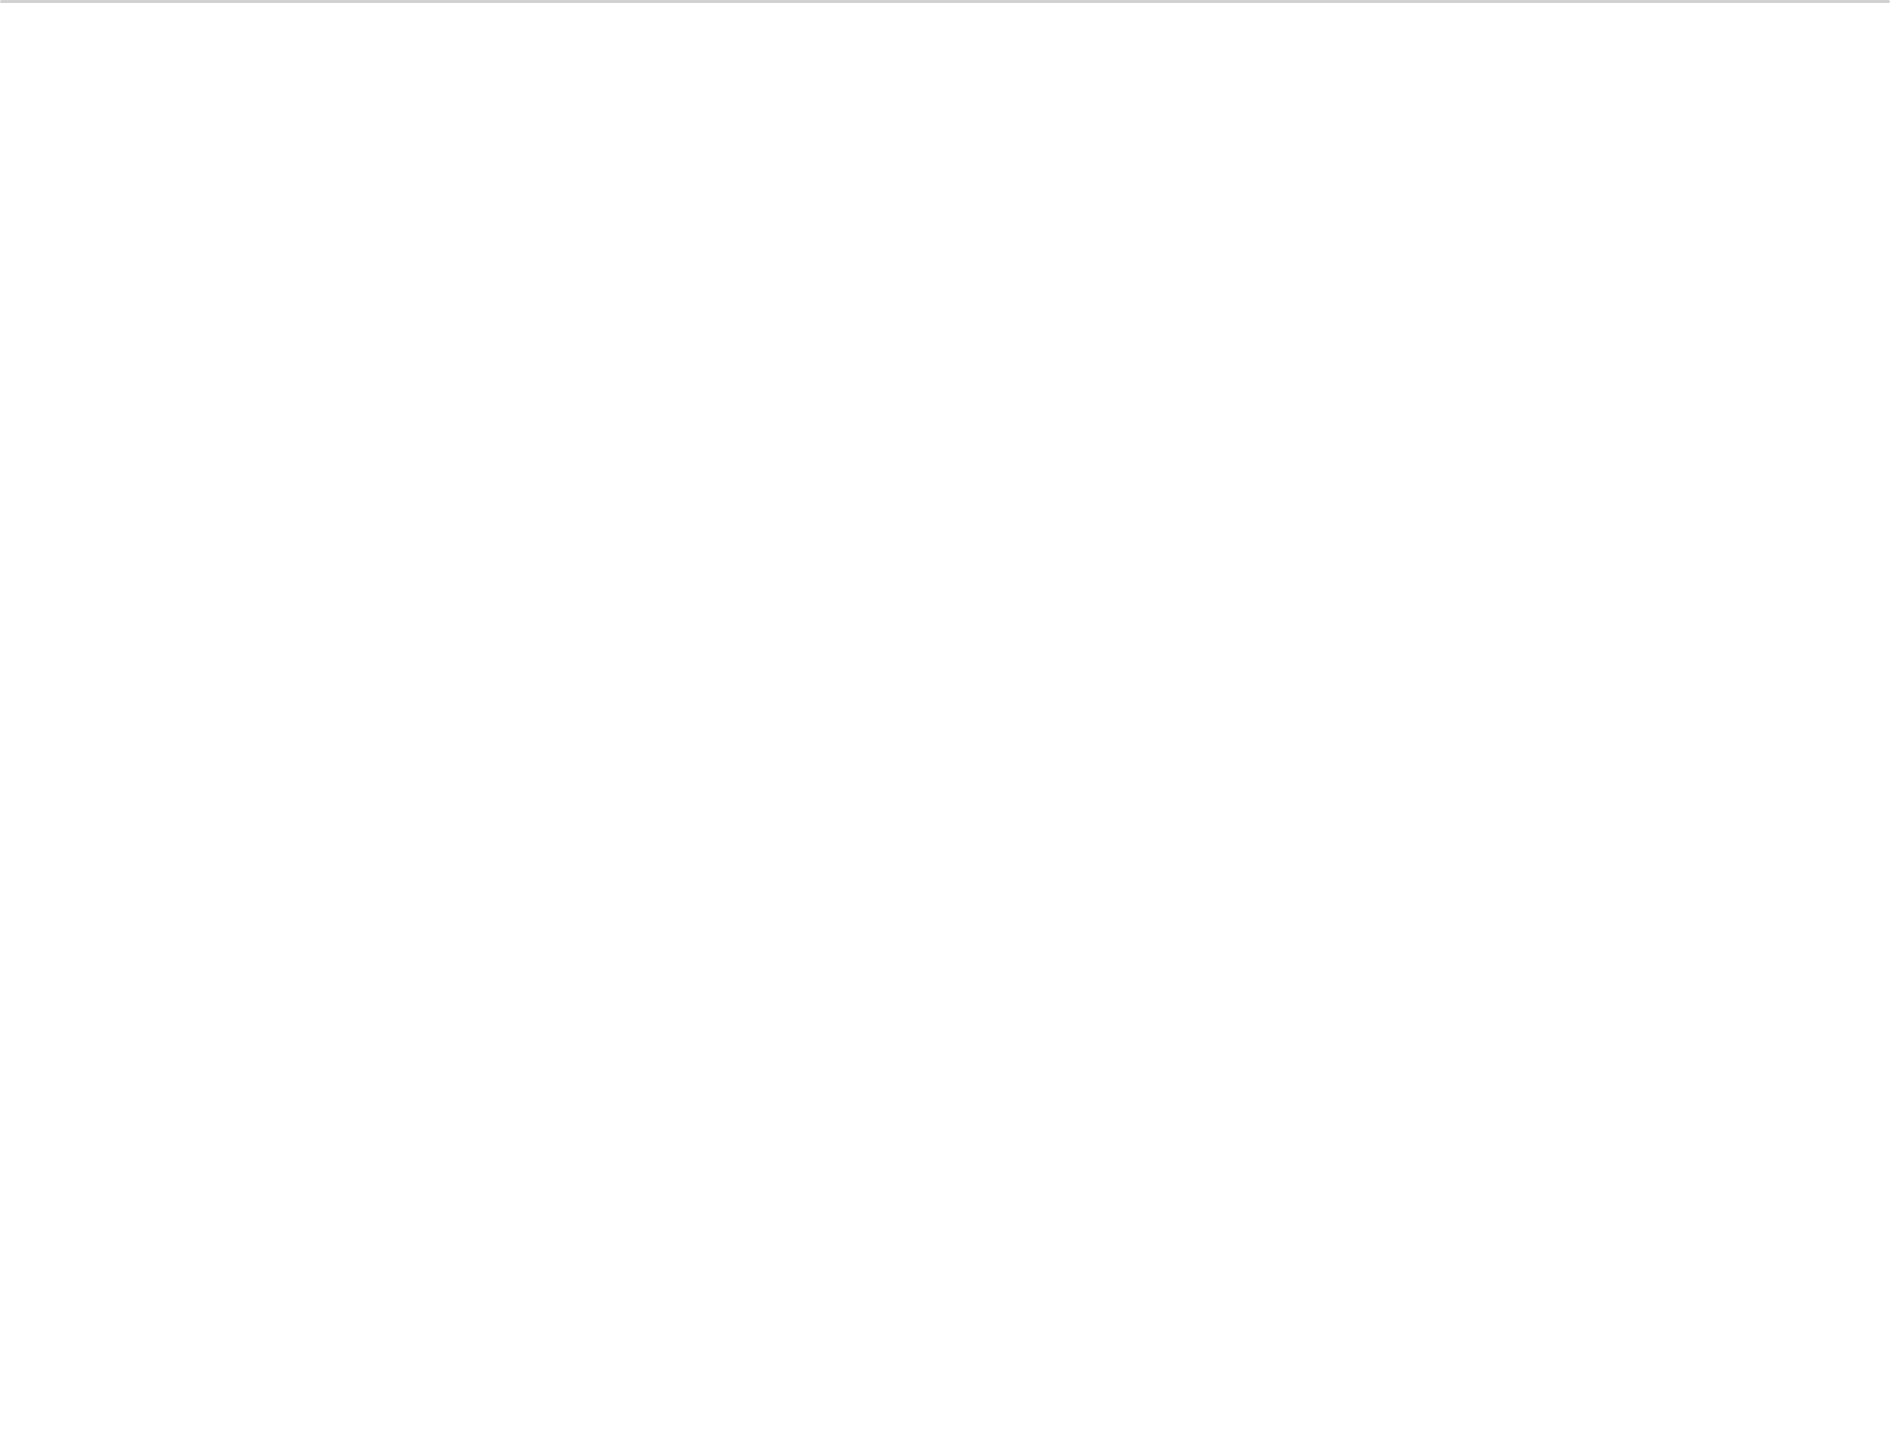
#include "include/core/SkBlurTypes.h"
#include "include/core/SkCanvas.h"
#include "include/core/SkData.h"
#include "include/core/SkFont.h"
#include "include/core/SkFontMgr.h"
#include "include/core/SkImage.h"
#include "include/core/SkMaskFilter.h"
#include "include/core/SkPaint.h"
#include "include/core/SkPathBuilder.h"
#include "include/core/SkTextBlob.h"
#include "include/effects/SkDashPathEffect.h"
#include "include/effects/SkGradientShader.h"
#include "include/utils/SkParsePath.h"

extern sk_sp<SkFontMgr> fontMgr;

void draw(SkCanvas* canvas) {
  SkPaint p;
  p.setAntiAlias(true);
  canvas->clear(SK_ColorWHITE);
  p.setColor(SkColorSetRGB(210, 210, 210));
  canvas->drawRoundRect(SkRect::MakeLTRB(0, 0, 1890, 3), 1.5f, 1.5f, p);
}
